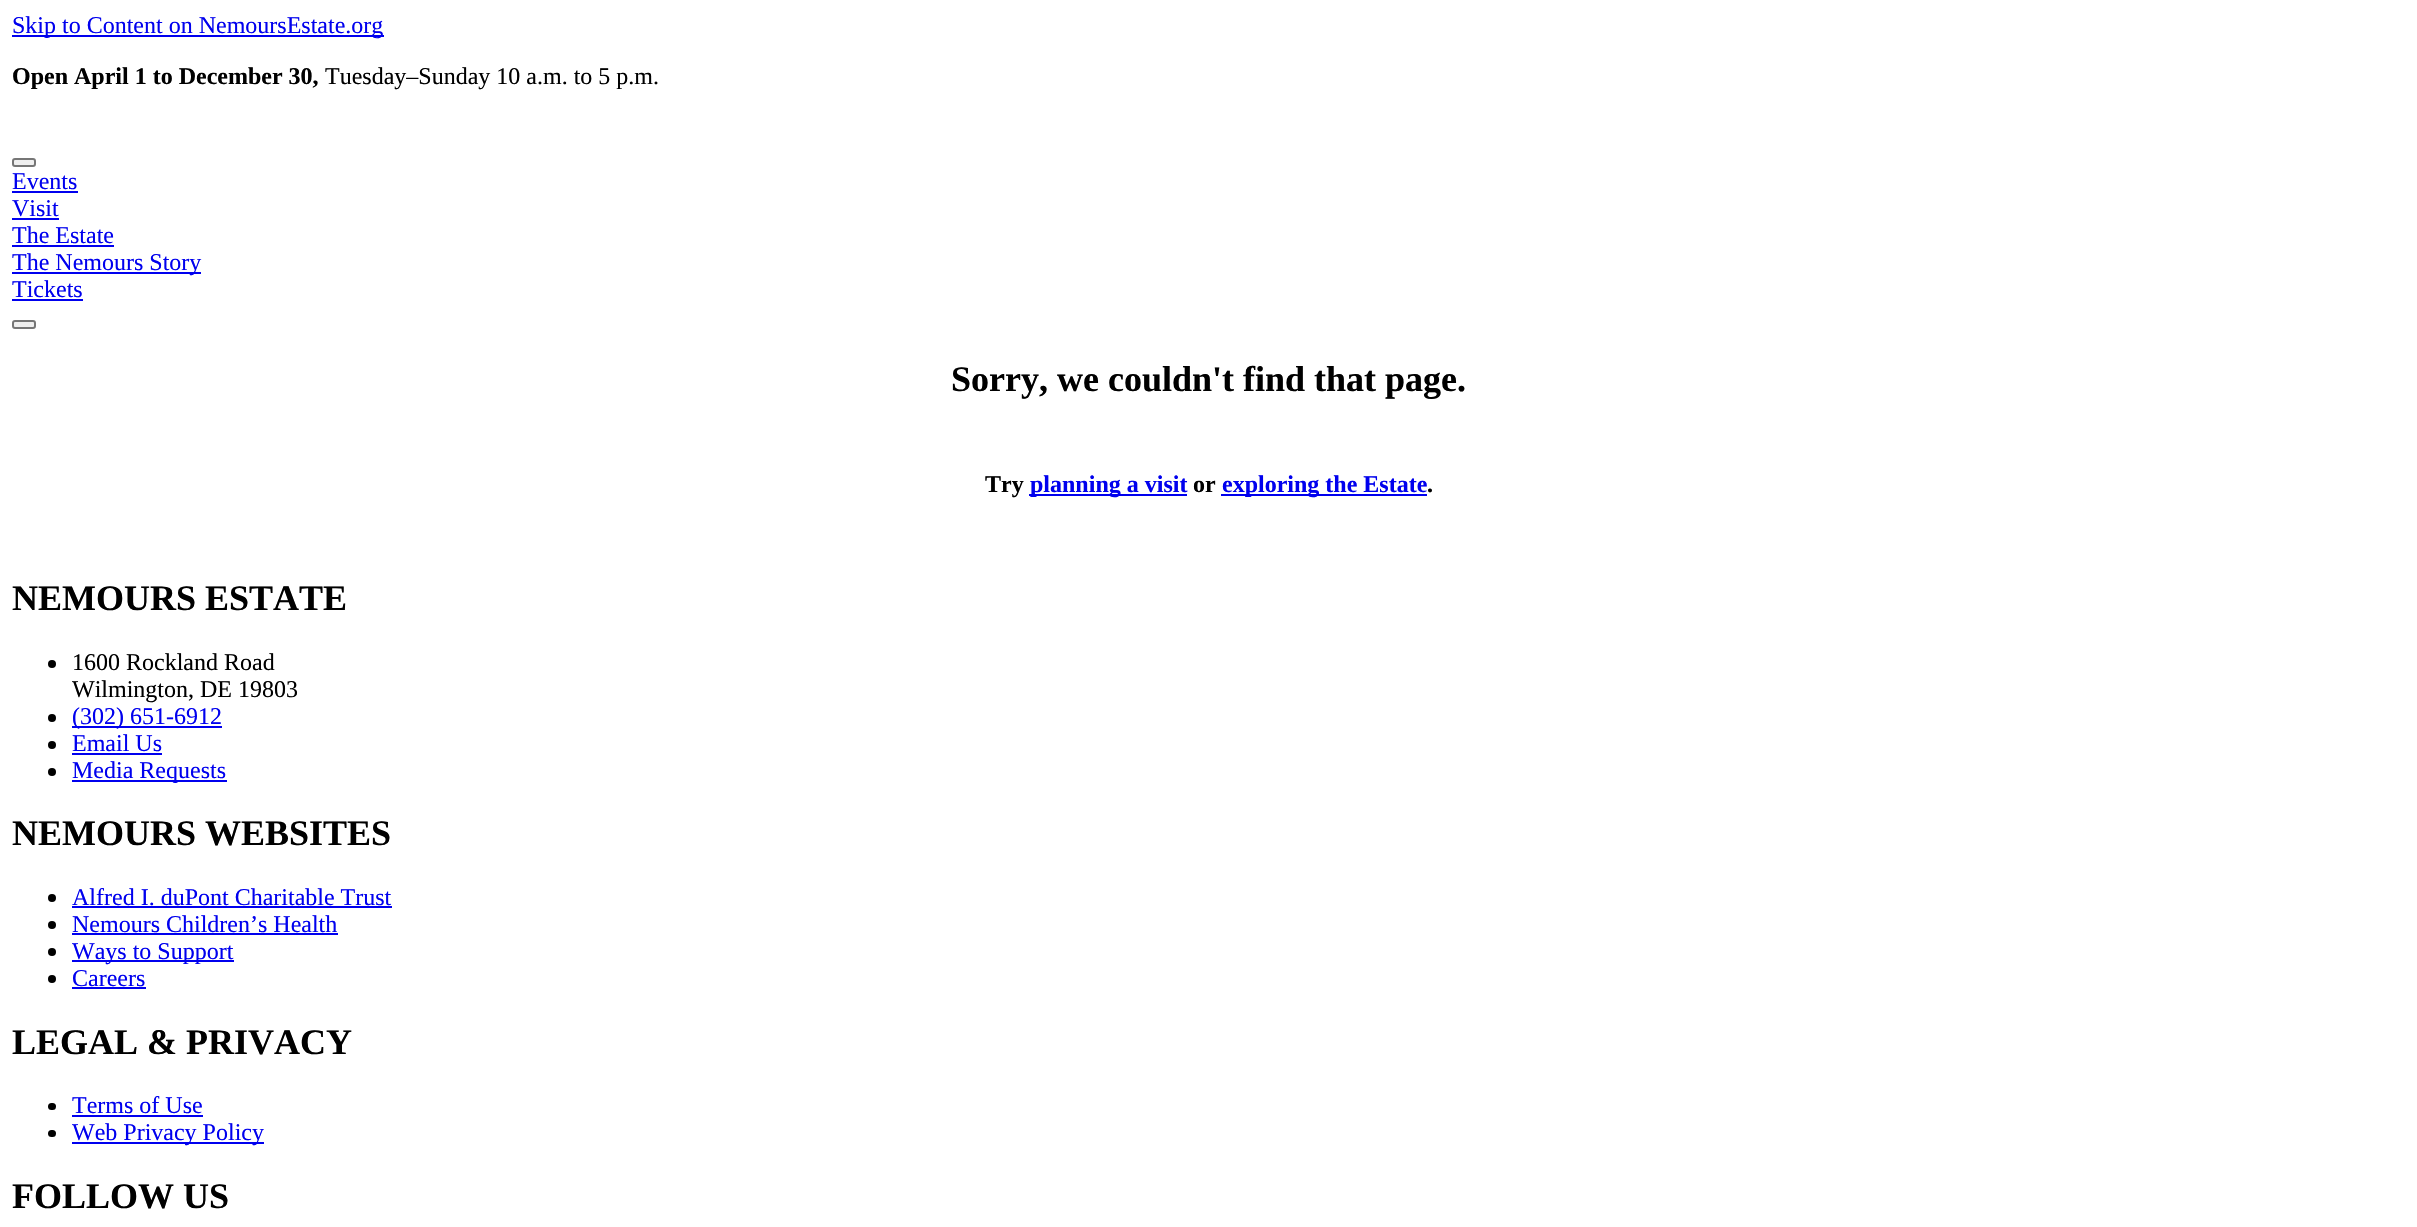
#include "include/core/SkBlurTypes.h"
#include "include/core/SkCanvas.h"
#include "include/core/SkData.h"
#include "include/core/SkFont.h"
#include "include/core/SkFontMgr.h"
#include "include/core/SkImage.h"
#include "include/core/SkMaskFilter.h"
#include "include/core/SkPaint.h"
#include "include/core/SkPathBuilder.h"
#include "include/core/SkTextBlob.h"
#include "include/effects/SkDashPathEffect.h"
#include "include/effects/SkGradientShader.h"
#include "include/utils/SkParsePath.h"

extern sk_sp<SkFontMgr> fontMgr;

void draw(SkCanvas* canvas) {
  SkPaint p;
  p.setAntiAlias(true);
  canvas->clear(SK_ColorWHITE);
  p.setColor(SkColorSetRGB(0, 0, 238));
  canvas->drawRect(SkRect::MakeLTRB(12, 35, 384, 37), p);
  p.setColor(SkColorSetRGB(239, 239, 239));
  canvas->drawRoundRect(SkRect::MakeLTRB(13, 159, 35, 166), 2, 2, p);
  p.setStyle(SkPaint::kStroke_Style);
  p.setStrokeWidth(2);
  p.setColor(SkColorSetRGB(118, 118, 118));
  canvas->drawRoundRect(SkRect::MakeLTRB(13, 159, 35, 166), 2, 2, p);
  p.setStyle(SkPaint::kFill_Style);
  p.setColor(SkColorSetRGB(0, 0, 238));
  canvas->drawRect(SkRect::MakeLTRB(12, 191, 78, 193), p);
  canvas->drawRect(SkRect::MakeLTRB(12, 218, 59, 220), p);
  canvas->drawRect(SkRect::MakeLTRB(12, 245, 114, 247), p);
  canvas->drawRect(SkRect::MakeLTRB(12, 272, 201, 274), p);
  canvas->drawRect(SkRect::MakeLTRB(12, 299, 83, 301), p);
  p.setColor(SkColorSetRGB(239, 239, 239));
  canvas->drawRoundRect(SkRect::MakeLTRB(13, 321, 35, 328), 2, 2, p);
  p.setStyle(SkPaint::kStroke_Style);
  p.setColor(SkColorSetRGB(118, 118, 118));
  canvas->drawRoundRect(SkRect::MakeLTRB(13, 321, 35, 328), 2, 2, p);
  p.setStyle(SkPaint::kFill_Style);
  p.setColor(SkColorSetRGB(0, 0, 238));
  canvas->drawRect(SkRect::MakeLTRB(1029, 494, 1187, 496), p);
  canvas->drawRect(SkRect::MakeLTRB(1221, 494, 1427, 496), p);
  p.setColor(SK_ColorBLACK);
  canvas->drawCircle(52, 664, 4, p);
  canvas->drawCircle(52, 718, 4, p);
  p.setColor(SkColorSetRGB(0, 0, 238));
  canvas->drawRect(SkRect::MakeLTRB(72, 726, 222, 728), p);
  p.setColor(SK_ColorBLACK);
  canvas->drawCircle(52, 745, 4, p);
  p.setColor(SkColorSetRGB(0, 0, 238));
  canvas->drawRect(SkRect::MakeLTRB(72, 753, 162, 755), p);
  p.setColor(SK_ColorBLACK);
  canvas->drawCircle(52, 772, 4, p);
  p.setColor(SkColorSetRGB(0, 0, 238));
  canvas->drawRect(SkRect::MakeLTRB(72, 780, 227, 782), p);
  p.setColor(SK_ColorBLACK);
  canvas->drawCircle(52, 898, 4, p);
  p.setColor(SkColorSetRGB(0, 0, 238));
  canvas->drawRect(SkRect::MakeLTRB(72, 906, 392, 908), p);
  p.setColor(SK_ColorBLACK);
  canvas->drawCircle(52, 925, 4, p);
  p.setColor(SkColorSetRGB(0, 0, 238));
  canvas->drawRect(SkRect::MakeLTRB(72, 933, 338, 935), p);
  p.setColor(SK_ColorBLACK);
  canvas->drawCircle(52, 952, 4, p);
  p.setColor(SkColorSetRGB(0, 0, 238));
  canvas->drawRect(SkRect::MakeLTRB(72, 960, 234, 962), p);
  p.setColor(SK_ColorBLACK);
  canvas->drawCircle(52, 979, 4, p);
  p.setColor(SkColorSetRGB(0, 0, 238));
  canvas->drawRect(SkRect::MakeLTRB(72, 987, 146, 989), p);
  p.setColor(SK_ColorBLACK);
  canvas->drawRoundRect(SkRect::MakeLTRB(48, 1103, 56, 1110), 3.5f, 3.5f, p);
  p.setColor(SkColorSetRGB(0, 0, 238));
  canvas->drawRect(SkRect::MakeLTRB(72, 1115, 203, 1117), p);
  p.setColor(SK_ColorBLACK);
  canvas->drawRoundRect(SkRect::MakeLTRB(48, 1130, 56, 1137), 3.5f, 3.5f, p);
  p.setColor(SkColorSetRGB(0, 0, 238));
  canvas->drawRect(SkRect::MakeLTRB(72, 1142, 264, 1144), p);
  SkFont font1(fontMgr->matchFamilyStyle("Liberation Serif", SkFontStyle::Normal()), 24);
  font1.setSubpixel(true);
  canvas->drawString("Skip to Content on NemoursEstate.org", 12, 33, font1, p);
  SkFont font2(fontMgr->matchFamilyStyle("Liberation Serif", SkFontStyle::Bold()), 24);
  font2.setSubpixel(true);
  p.setColor(SK_ColorBLACK);
  canvas->drawString("Open April 1 to December 30,", 12, 84, font2, p);
  canvas->drawString("Tuesday–Sunday 10 a.m. to 5 p.m.", 325, 84, font1, p);
  p.setColor(SkColorSetRGB(0, 0, 238));
  canvas->drawString("Events", 12, 189, font1, p);
  canvas->drawString("Visit", 12, 216, font1, p);
  canvas->drawString("The Estate", 12, 243, font1, p);
  canvas->drawString("The Nemours Story", 12, 270, font1, p);
  canvas->drawString("Tickets", 12, 297, font1, p);
  SkFont font3(fontMgr->matchFamilyStyle("Liberation Serif", SkFontStyle::Bold()), 36);
  font3.setSubpixel(true);
  p.setColor(SK_ColorBLACK);
  canvas->drawString("Sorry, we couldn't find that page.", 951, 391, font3, p);
  canvas->drawString("Try", 985, 492, font2, p);
  p.setColor(SkColorSetRGB(0, 0, 238));
  canvas->drawString("planning a visit", 1030, 492, font2, p);
  p.setColor(SK_ColorBLACK);
  canvas->drawString("or", 1193, 492, font2, p);
  p.setColor(SkColorSetRGB(0, 0, 238));
  canvas->drawString("exploring the Estate", 1222, 492, font2, p);
  p.setColor(SK_ColorBLACK);
  canvas->drawString(".", 1427, 492, font2, p);
  canvas->drawString("NEMOURS ESTATE", 12, 610, font3, p);
  canvas->drawString("1600 Rockland Road", 72, 670, font1, p);
  canvas->drawString("Wilmington, DE 19803", 72, 697, font1, p);
  p.setColor(SkColorSetRGB(0, 0, 238));
  canvas->drawString("(302) 651-6912", 72, 724, font1, p);
  canvas->drawString("Email Us", 72, 751, font1, p);
  canvas->drawString("Media Requests", 72, 778, font1, p);
  p.setColor(SK_ColorBLACK);
  canvas->drawString("NEMOURS WEBSITES", 12, 845, font3, p);
  p.setColor(SkColorSetRGB(0, 0, 238));
  canvas->drawString("Alfred I. duPont Charitable Trust", 72, 905, font1, p);
  canvas->drawString("Nemours Children’s Health", 72, 932, font1, p);
  canvas->drawString("Ways to Support", 72, 959, font1, p);
  canvas->drawString("Careers", 72, 986, font1, p);
  p.setColor(SK_ColorBLACK);
  canvas->drawString("LEGAL & PRIVACY", 12, 1054, font3, p);
  p.setColor(SkColorSetRGB(0, 0, 238));
  canvas->drawString("Terms of Use", 72, 1113, font1, p);
  canvas->drawString("Web Privacy Policy", 72, 1140, font1, p);
  p.setColor(SK_ColorBLACK);
  canvas->drawString("FOLLOW US", 12, 1208, font3, p);
}
